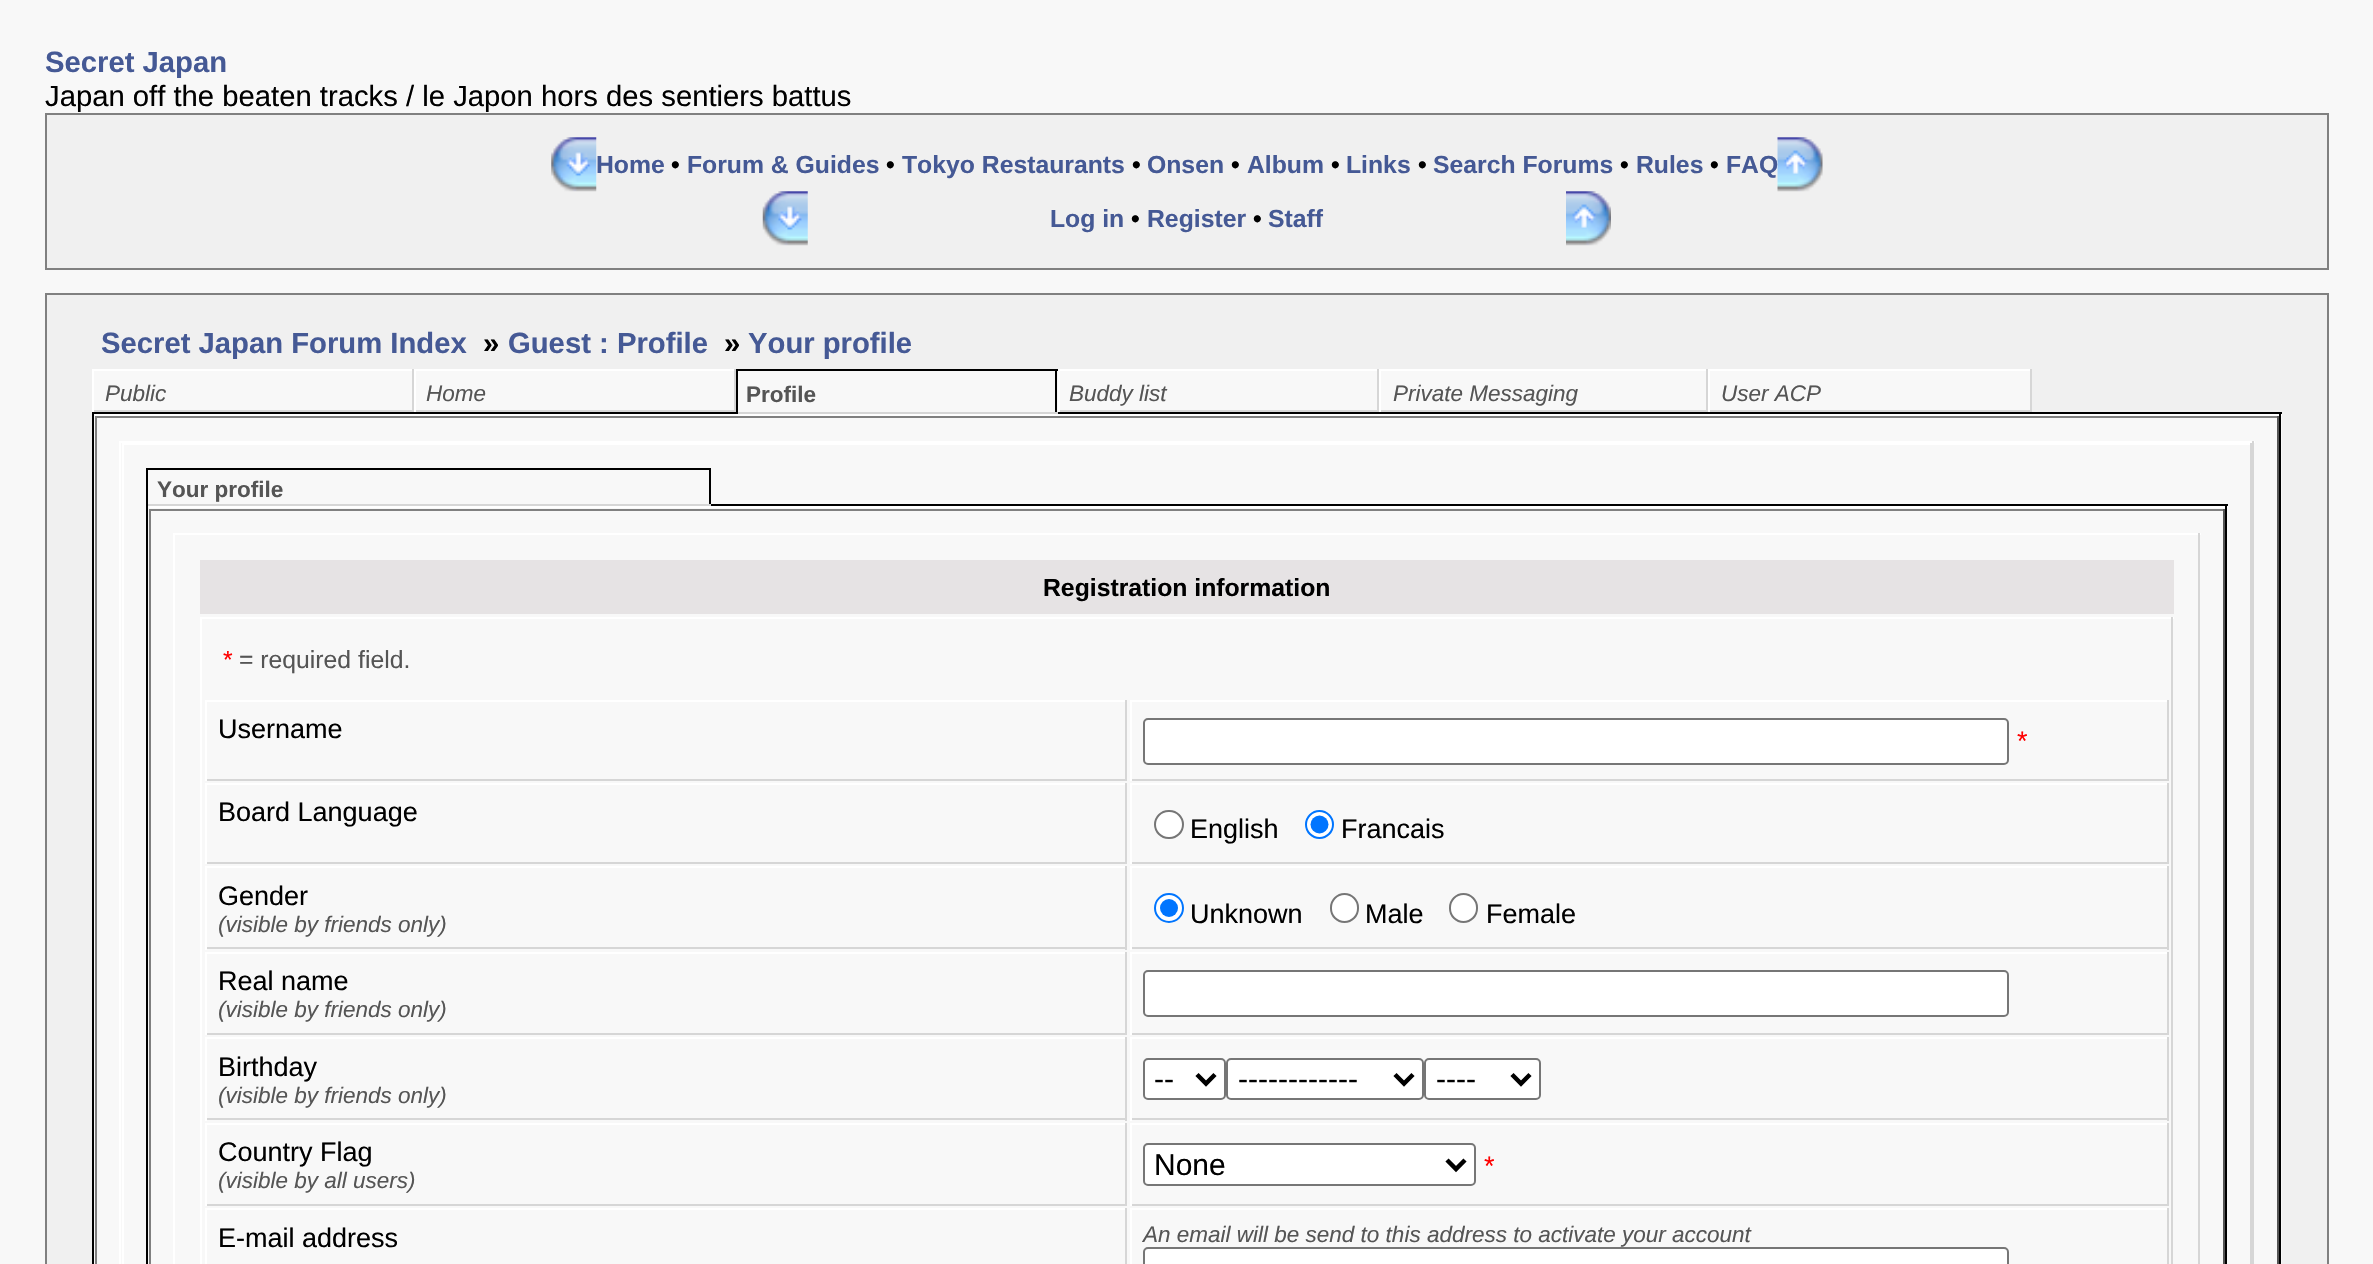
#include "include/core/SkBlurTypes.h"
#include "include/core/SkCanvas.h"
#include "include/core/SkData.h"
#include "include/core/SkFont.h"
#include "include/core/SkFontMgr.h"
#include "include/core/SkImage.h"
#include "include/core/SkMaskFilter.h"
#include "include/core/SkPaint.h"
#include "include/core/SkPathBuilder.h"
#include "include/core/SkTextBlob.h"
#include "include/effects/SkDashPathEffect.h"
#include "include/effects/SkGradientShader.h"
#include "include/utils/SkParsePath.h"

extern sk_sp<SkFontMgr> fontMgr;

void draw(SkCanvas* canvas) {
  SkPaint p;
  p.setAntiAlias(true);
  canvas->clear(SkColorSetRGB(248, 248, 248));
  p.setColor(SkColorSetRGB(240, 240, 240));
  canvas->drawRect(SkRect::MakeLTRB(46, 114, 2328, 269), p);
  p.setStyle(SkPaint::kStroke_Style);
  p.setStrokeWidth(2);
  p.setColor(SkColorSetRGB(128, 128, 128));
  canvas->drawRect(SkRect::MakeLTRB(46, 114, 2328, 269), p);
  canvas->drawImageRect(SkImages::DeferredFromEncodedData(SkData::MakeFromFileName("images/1.png")), SkRect::MakeLTRB(551, 137, 597, 192), SkSamplingOptions());
  canvas->drawImageRect(SkImages::DeferredFromEncodedData(SkData::MakeFromFileName("images/2.png")), SkRect::MakeLTRB(1777, 137, 1823, 192), SkSamplingOptions());
  canvas->drawImageRect(SkImages::DeferredFromEncodedData(SkData::MakeFromFileName("images/3.png")), SkRect::MakeLTRB(762, 191, 808, 246), SkSamplingOptions());
  canvas->drawImageRect(SkImages::DeferredFromEncodedData(SkData::MakeFromFileName("images/4.png")), SkRect::MakeLTRB(1566, 191, 1611, 246), SkSamplingOptions());
  p.setStyle(SkPaint::kFill_Style);
  p.setColor(SkColorSetRGB(240, 240, 240));
  canvas->drawRect(SkRect::MakeLTRB(46, 294, 2328, 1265), p);
  p.setStyle(SkPaint::kStroke_Style);
  p.setColor(SkColorSetRGB(128, 128, 128));
  canvas->drawRect(SkRect::MakeLTRB(46, 294, 2328, 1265), p);
  p.setStyle(SkPaint::kFill_Style);
  p.setColor(SK_ColorBLACK);
  canvas->drawRect(SkRect::MakeLTRB(92, 412, 736, 414), p);
  p.setColor(SkColorSetRGB(248, 248, 248));
  canvas->drawRect(SkRect::MakeLTRB(94, 371, 412, 410), p);
  p.setColor(SK_ColorWHITE);
  canvas->drawRect(SkRect::MakeLTRB(92, 369, 736, 371), p);
  p.setColor(SkColorSetRGB(214, 214, 214));
  canvas->drawRect(SkRect::MakeLTRB(412, 369, 414, 412), p);
  canvas->drawRect(SkRect::MakeLTRB(92, 410, 414, 412), p);
  p.setColor(SK_ColorWHITE);
  canvas->drawRect(SkRect::MakeLTRB(92, 369, 94, 412), p);
  p.setColor(SkColorSetRGB(248, 248, 248));
  canvas->drawRect(SkRect::MakeLTRB(416, 371, 734, 410), p);
  p.setColor(SkColorSetRGB(214, 214, 214));
  canvas->drawRect(SkRect::MakeLTRB(734, 369, 736, 412), p);
  canvas->drawRect(SkRect::MakeLTRB(414, 410, 736, 412), p);
  p.setColor(SK_ColorWHITE);
  canvas->drawRect(SkRect::MakeLTRB(414, 369, 416, 412), p);
  p.setColor(SkColorSetRGB(248, 248, 248));
  canvas->drawRect(SkRect::MakeLTRB(738, 371, 1058, 412), p);
  p.setColor(SK_ColorBLACK);
  canvas->drawRect(SkRect::MakeLTRB(736, 369, 1058, 371), p);
  canvas->drawRect(SkRect::MakeLTRB(1055, 369, 1057, 414), p);
  p.setColor(SkColorSetRGB(214, 214, 214));
  canvas->drawRect(SkRect::MakeLTRB(736, 412, 1058, 414), p);
  p.setColor(SK_ColorBLACK);
  canvas->drawRect(SkRect::MakeLTRB(736, 369, 738, 414), p);
  canvas->drawRect(SkRect::MakeLTRB(1058, 412, 2282, 414), p);
  p.setColor(SkColorSetRGB(248, 248, 248));
  canvas->drawRect(SkRect::MakeLTRB(1060, 371, 1377, 410), p);
  p.setColor(SK_ColorWHITE);
  canvas->drawRect(SkRect::MakeLTRB(1058, 369, 2032, 371), p);
  p.setColor(SkColorSetRGB(214, 214, 214));
  canvas->drawRect(SkRect::MakeLTRB(1377, 369, 1379, 412), p);
  canvas->drawRect(SkRect::MakeLTRB(1058, 410, 1379, 412), p);
  p.setColor(SK_ColorWHITE);
  canvas->drawRect(SkRect::MakeLTRB(1058, 369, 1060, 412), p);
  p.setColor(SkColorSetRGB(248, 248, 248));
  canvas->drawRect(SkRect::MakeLTRB(1381, 371, 1706, 410), p);
  p.setColor(SkColorSetRGB(214, 214, 214));
  canvas->drawRect(SkRect::MakeLTRB(1706, 369, 1708, 412), p);
  canvas->drawRect(SkRect::MakeLTRB(1379, 410, 1708, 412), p);
  p.setColor(SK_ColorWHITE);
  canvas->drawRect(SkRect::MakeLTRB(1379, 369, 1381, 412), p);
  p.setColor(SkColorSetRGB(248, 248, 248));
  canvas->drawRect(SkRect::MakeLTRB(1710, 371, 2030, 410), p);
  p.setColor(SkColorSetRGB(214, 214, 214));
  canvas->drawRect(SkRect::MakeLTRB(2030, 369, 2032, 412), p);
  canvas->drawRect(SkRect::MakeLTRB(1708, 410, 2032, 412), p);
  p.setColor(SK_ColorWHITE);
  canvas->drawRect(SkRect::MakeLTRB(1708, 369, 1710, 412), p);
  p.setColor(SkColorSetRGB(248, 248, 248));
  canvas->drawRect(SkRect::MakeLTRB(94, 416, 2282, 1264), p);
  p.setColor(SK_ColorWHITE);
  canvas->drawRect(SkRect::MakeLTRB(92, 414, 2282, 416), p);
  p.setColor(SK_ColorBLACK);
  canvas->drawRect(SkRect::MakeLTRB(2279, 414, 2281, 1264), p);
  canvas->drawRect(SkRect::MakeLTRB(92, 414, 94, 1264), p);
  p.setColor(SkColorSetRGB(128, 128, 128));
  canvas->drawRect(SkRect::MakeLTRB(95, 416, 2279, 418), p);
  p.setColor(SkColorSetRGB(85, 85, 85));
  canvas->drawRect(SkRect::MakeLTRB(2277, 416, 2279, 1264), p);
  p.setColor(SkColorSetRGB(128, 128, 128));
  canvas->drawRect(SkRect::MakeLTRB(95, 416, 97, 1264), p);
  p.setColor(SK_ColorWHITE);
  canvas->drawRect(SkRect::MakeLTRB(119, 441, 2255, 443), p);
  p.setColor(SkColorSetRGB(214, 214, 214));
  canvas->drawRect(SkRect::MakeLTRB(2252, 441, 2254, 1264), p);
  p.setColor(SK_ColorWHITE);
  canvas->drawRect(SkRect::MakeLTRB(119, 441, 121, 1264), p);
  canvas->drawRect(SkRect::MakeLTRB(122, 443, 2252, 445), p);
  p.setColor(SkColorSetRGB(214, 214, 214));
  canvas->drawRect(SkRect::MakeLTRB(2250, 443, 2252, 1264), p);
  p.setColor(SK_ColorWHITE);
  canvas->drawRect(SkRect::MakeLTRB(122, 443, 124, 1264), p);
  p.setColor(SK_ColorBLACK);
  canvas->drawRect(SkRect::MakeLTRB(146, 468, 711, 470), p);
  canvas->drawRect(SkRect::MakeLTRB(709, 468, 711, 506), p);
  p.setColor(SkColorSetRGB(214, 214, 214));
  canvas->drawRect(SkRect::MakeLTRB(146, 504, 711, 506), p);
  p.setColor(SK_ColorBLACK);
  canvas->drawRect(SkRect::MakeLTRB(146, 468, 148, 506), p);
  canvas->drawRect(SkRect::MakeLTRB(711, 504, 2228, 506), p);
  p.setColor(SK_ColorWHITE);
  canvas->drawRect(SkRect::MakeLTRB(146, 506, 2228, 508), p);
  p.setColor(SK_ColorBLACK);
  canvas->drawRect(SkRect::MakeLTRB(2225, 506, 2227, 1264), p);
  canvas->drawRect(SkRect::MakeLTRB(146, 506, 148, 1264), p);
  p.setColor(SkColorSetRGB(128, 128, 128));
  canvas->drawRect(SkRect::MakeLTRB(149, 509, 2225, 511), p);
  p.setColor(SkColorSetRGB(85, 85, 85));
  canvas->drawRect(SkRect::MakeLTRB(2223, 509, 2225, 1264), p);
  p.setColor(SkColorSetRGB(128, 128, 128));
  canvas->drawRect(SkRect::MakeLTRB(149, 509, 151, 1264), p);
  p.setColor(SK_ColorWHITE);
  canvas->drawRect(SkRect::MakeLTRB(173, 533, 2201, 535), p);
  p.setColor(SkColorSetRGB(214, 214, 214));
  canvas->drawRect(SkRect::MakeLTRB(2198, 533, 2200, 1264), p);
  p.setColor(SK_ColorWHITE);
  canvas->drawRect(SkRect::MakeLTRB(173, 533, 175, 1264), p);
  p.setColor(SkColorSetRGB(230, 227, 228));
  canvas->drawRect(SkRect::MakeLTRB(200, 560, 2174, 614), p);
  p.setColor(SK_ColorWHITE);
  canvas->drawRect(SkRect::MakeLTRB(200, 617, 2174, 619), p);
  p.setColor(SkColorSetRGB(214, 214, 214));
  canvas->drawRect(SkRect::MakeLTRB(2171, 617, 2173, 1264), p);
  p.setColor(SK_ColorWHITE);
  canvas->drawRect(SkRect::MakeLTRB(200, 617, 202, 1264), p);
  canvas->drawRect(SkRect::MakeLTRB(205, 700, 1127, 702), p);
  p.setColor(SkColorSetRGB(214, 214, 214));
  canvas->drawRect(SkRect::MakeLTRB(1125, 700, 1127, 781), p);
  canvas->drawRect(SkRect::MakeLTRB(205, 779, 1127, 781), p);
  p.setColor(SK_ColorWHITE);
  canvas->drawRect(SkRect::MakeLTRB(205, 700, 207, 781), p);
  canvas->drawRect(SkRect::MakeLTRB(1130, 700, 2169, 702), p);
  p.setColor(SkColorSetRGB(214, 214, 214));
  canvas->drawRect(SkRect::MakeLTRB(2167, 700, 2169, 781), p);
  canvas->drawRect(SkRect::MakeLTRB(1130, 779, 2169, 781), p);
  p.setColor(SK_ColorWHITE);
  canvas->drawRect(SkRect::MakeLTRB(1130, 700, 1132, 781), p);
  canvas->drawRoundRect(SkRect::MakeLTRB(1144, 719, 2008, 764), 4, 4, p);
  p.setStyle(SkPaint::kStroke_Style);
  p.setColor(SkColorSetRGB(118, 118, 118));
  canvas->drawRoundRect(SkRect::MakeLTRB(1144, 719, 2008, 764), 4, 4, p);
  p.setStyle(SkPaint::kFill_Style);
  p.setColor(SK_ColorWHITE);
  canvas->drawRect(SkRect::MakeLTRB(205, 783, 1127, 785), p);
  p.setColor(SkColorSetRGB(214, 214, 214));
  canvas->drawRect(SkRect::MakeLTRB(1125, 783, 1127, 864), p);
  canvas->drawRect(SkRect::MakeLTRB(205, 862, 1127, 864), p);
  p.setColor(SK_ColorWHITE);
  canvas->drawRect(SkRect::MakeLTRB(205, 783, 207, 864), p);
  canvas->drawRect(SkRect::MakeLTRB(1130, 783, 2169, 785), p);
  p.setColor(SkColorSetRGB(214, 214, 214));
  canvas->drawRect(SkRect::MakeLTRB(2167, 783, 2169, 864), p);
  canvas->drawRect(SkRect::MakeLTRB(1130, 862, 2169, 864), p);
  p.setColor(SK_ColorWHITE);
  canvas->drawRect(SkRect::MakeLTRB(1130, 783, 1132, 864), p);
  canvas->drawRoundRect(SkRect::MakeLTRB(1155, 811, 1183, 838), 13.5f, 13.5f, p);
  p.setStyle(SkPaint::kStroke_Style);
  p.setColor(SkColorSetRGB(118, 118, 118));
  canvas->drawRoundRect(SkRect::MakeLTRB(1155, 811, 1183, 838), 13.5f, 13.5f, p);
  p.setStyle(SkPaint::kFill_Style);
  p.setColor(SK_ColorWHITE);
  canvas->drawCircle(1319.5f, 824.5f, 13.5f, p);
  p.setStyle(SkPaint::kStroke_Style);
  p.setColor(SkColorSetRGB(0, 117, 255));
  canvas->drawCircle(1319.5f, 824.5f, 13.5f, p);
  p.setStyle(SkPaint::kFill_Style);
  canvas->drawCircle(1319.5f, 824.5f, 9, p);
  p.setColor(SK_ColorWHITE);
  canvas->drawRect(SkRect::MakeLTRB(205, 866, 1127, 868), p);
  p.setColor(SkColorSetRGB(214, 214, 214));
  canvas->drawRect(SkRect::MakeLTRB(1125, 866, 1127, 950), p);
  canvas->drawRect(SkRect::MakeLTRB(205, 947, 1127, 949), p);
  p.setColor(SK_ColorWHITE);
  canvas->drawRect(SkRect::MakeLTRB(205, 866, 207, 950), p);
  canvas->drawRect(SkRect::MakeLTRB(1130, 866, 2169, 868), p);
  p.setColor(SkColorSetRGB(214, 214, 214));
  canvas->drawRect(SkRect::MakeLTRB(2167, 866, 2169, 950), p);
  canvas->drawRect(SkRect::MakeLTRB(1130, 947, 2169, 949), p);
  p.setColor(SK_ColorWHITE);
  canvas->drawRect(SkRect::MakeLTRB(1130, 866, 1132, 950), p);
  canvas->drawCircle(1169, 908, 14, p);
  p.setStyle(SkPaint::kStroke_Style);
  p.setColor(SkColorSetRGB(0, 117, 255));
  canvas->drawCircle(1169, 908, 14, p);
  p.setStyle(SkPaint::kFill_Style);
  canvas->drawCircle(1169, 908, 9, p);
  p.setColor(SK_ColorWHITE);
  canvas->drawRoundRect(SkRect::MakeLTRB(1331, 894, 1358, 922), 13.5f, 13.5f, p);
  p.setStyle(SkPaint::kStroke_Style);
  p.setColor(SkColorSetRGB(118, 118, 118));
  canvas->drawRoundRect(SkRect::MakeLTRB(1331, 894, 1358, 922), 13.5f, 13.5f, p);
  p.setStyle(SkPaint::kFill_Style);
  p.setColor(SK_ColorWHITE);
  canvas->drawRoundRect(SkRect::MakeLTRB(1450, 894, 1477, 922), 13.5f, 13.5f, p);
  p.setStyle(SkPaint::kStroke_Style);
  p.setColor(SkColorSetRGB(118, 118, 118));
  canvas->drawRoundRect(SkRect::MakeLTRB(1450, 894, 1477, 922), 13.5f, 13.5f, p);
  p.setStyle(SkPaint::kFill_Style);
  p.setColor(SK_ColorWHITE);
  canvas->drawRect(SkRect::MakeLTRB(205, 952, 1127, 954), p);
  p.setColor(SkColorSetRGB(214, 214, 214));
  canvas->drawRect(SkRect::MakeLTRB(1125, 952, 1127, 1035), p);
  canvas->drawRect(SkRect::MakeLTRB(205, 1033, 1127, 1035), p);
  p.setColor(SK_ColorWHITE);
  canvas->drawRect(SkRect::MakeLTRB(205, 952, 207, 1035), p);
  canvas->drawRect(SkRect::MakeLTRB(1130, 952, 2169, 954), p);
  p.setColor(SkColorSetRGB(214, 214, 214));
  canvas->drawRect(SkRect::MakeLTRB(2167, 952, 2169, 1035), p);
  canvas->drawRect(SkRect::MakeLTRB(1130, 1033, 2169, 1035), p);
  p.setColor(SK_ColorWHITE);
  canvas->drawRect(SkRect::MakeLTRB(1130, 952, 1132, 1035), p);
  canvas->drawRoundRect(SkRect::MakeLTRB(1144, 971, 2008, 1016), 4, 4, p);
  p.setStyle(SkPaint::kStroke_Style);
  p.setColor(SkColorSetRGB(118, 118, 118));
  canvas->drawRoundRect(SkRect::MakeLTRB(1144, 971, 2008, 1016), 4, 4, p);
  p.setStyle(SkPaint::kFill_Style);
  p.setColor(SK_ColorWHITE);
  canvas->drawRect(SkRect::MakeLTRB(205, 1037, 1127, 1039), p);
  p.setColor(SkColorSetRGB(214, 214, 214));
  canvas->drawRect(SkRect::MakeLTRB(1125, 1037, 1127, 1121), p);
  canvas->drawRect(SkRect::MakeLTRB(205, 1118, 1127, 1120), p);
  p.setColor(SK_ColorWHITE);
  canvas->drawRect(SkRect::MakeLTRB(205, 1037, 207, 1121), p);
  canvas->drawRect(SkRect::MakeLTRB(1130, 1037, 2169, 1039), p);
  p.setColor(SkColorSetRGB(214, 214, 214));
  canvas->drawRect(SkRect::MakeLTRB(2167, 1037, 2169, 1121), p);
  canvas->drawRect(SkRect::MakeLTRB(1130, 1118, 2169, 1120), p);
  p.setColor(SK_ColorWHITE);
  canvas->drawRect(SkRect::MakeLTRB(1130, 1037, 1132, 1121), p);
  canvas->drawRoundRect(SkRect::MakeLTRB(1144, 1059, 1225, 1099), 4, 4, p);
  p.setStyle(SkPaint::kStroke_Style);
  p.setColor(SkColorSetRGB(118, 118, 118));
  canvas->drawRoundRect(SkRect::MakeLTRB(1144, 1059, 1225, 1099), 4, 4, p);
  p.setStrokeWidth(4.5f);
  p.setColor(SK_ColorBLACK);
  canvas->drawPath(SkPathBuilder().moveTo(1197, 1074.5f).lineTo(1206, 1083.5f).lineTo(1215, 1074.5f).detach(), p);
  p.setStyle(SkPaint::kFill_Style);
  p.setColor(SK_ColorWHITE);
  canvas->drawRoundRect(SkRect::MakeLTRB(1227, 1059, 1423, 1099), 4, 4, p);
  p.setStyle(SkPaint::kStroke_Style);
  p.setStrokeWidth(2);
  p.setColor(SkColorSetRGB(118, 118, 118));
  canvas->drawRoundRect(SkRect::MakeLTRB(1227, 1059, 1423, 1099), 4, 4, p);
  p.setStrokeWidth(4.5f);
  p.setColor(SK_ColorBLACK);
  canvas->drawPath(SkPathBuilder().moveTo(1395, 1074.5f).lineTo(1404, 1083.5f).lineTo(1413, 1074.5f).detach(), p);
  p.setStyle(SkPaint::kFill_Style);
  p.setColor(SK_ColorWHITE);
  canvas->drawRoundRect(SkRect::MakeLTRB(1425, 1059, 1540, 1099), 4, 4, p);
  p.setStyle(SkPaint::kStroke_Style);
  p.setStrokeWidth(2);
  p.setColor(SkColorSetRGB(118, 118, 118));
  canvas->drawRoundRect(SkRect::MakeLTRB(1425, 1059, 1540, 1099), 4, 4, p);
  p.setStrokeWidth(4.5f);
  p.setColor(SK_ColorBLACK);
  canvas->drawPath(SkPathBuilder().moveTo(1512, 1074.5f).lineTo(1521, 1083.5f).lineTo(1530, 1074.5f).detach(), p);
  p.setStyle(SkPaint::kFill_Style);
  p.setColor(SK_ColorWHITE);
  canvas->drawRect(SkRect::MakeLTRB(205, 1123, 1127, 1125), p);
  p.setColor(SkColorSetRGB(214, 214, 214));
  canvas->drawRect(SkRect::MakeLTRB(1125, 1123, 1127, 1206), p);
  canvas->drawRect(SkRect::MakeLTRB(205, 1204, 1127, 1206), p);
  p.setColor(SK_ColorWHITE);
  canvas->drawRect(SkRect::MakeLTRB(205, 1123, 207, 1206), p);
  canvas->drawRect(SkRect::MakeLTRB(1130, 1123, 2169, 1125), p);
  p.setColor(SkColorSetRGB(214, 214, 214));
  canvas->drawRect(SkRect::MakeLTRB(2167, 1123, 2169, 1206), p);
  canvas->drawRect(SkRect::MakeLTRB(1130, 1204, 2169, 1206), p);
  p.setColor(SK_ColorWHITE);
  canvas->drawRect(SkRect::MakeLTRB(1130, 1123, 1132, 1206), p);
  canvas->drawRoundRect(SkRect::MakeLTRB(1144, 1144, 1475, 1185), 4, 4, p);
  p.setStyle(SkPaint::kStroke_Style);
  p.setStrokeWidth(2);
  p.setColor(SkColorSetRGB(118, 118, 118));
  canvas->drawRoundRect(SkRect::MakeLTRB(1144, 1144, 1475, 1185), 4, 4, p);
  p.setStrokeWidth(4.5f);
  p.setColor(SK_ColorBLACK);
  canvas->drawPath(SkPathBuilder().moveTo(1447, 1160).lineTo(1456, 1169).lineTo(1465, 1160).detach(), p);
  p.setStyle(SkPaint::kFill_Style);
  p.setColor(SK_ColorWHITE);
  canvas->drawRect(SkRect::MakeLTRB(205, 1208, 1127, 1210), p);
  p.setColor(SkColorSetRGB(214, 214, 214));
  canvas->drawRect(SkRect::MakeLTRB(1125, 1208, 1127, 1264), p);
  p.setColor(SK_ColorWHITE);
  canvas->drawRect(SkRect::MakeLTRB(205, 1208, 207, 1264), p);
  canvas->drawRect(SkRect::MakeLTRB(1130, 1208, 2169, 1210), p);
  p.setColor(SkColorSetRGB(214, 214, 214));
  canvas->drawRect(SkRect::MakeLTRB(2167, 1208, 2169, 1264), p);
  p.setColor(SK_ColorWHITE);
  canvas->drawRect(SkRect::MakeLTRB(1130, 1208, 1132, 1264), p);
  canvas->drawRoundRect(SkRect::MakeLTRB(1144, 1248, 2008, 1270), 4, 4, p);
  p.setStyle(SkPaint::kStroke_Style);
  p.setStrokeWidth(2);
  p.setColor(SkColorSetRGB(118, 118, 118));
  canvas->drawRoundRect(SkRect::MakeLTRB(1144, 1248, 2008, 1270), 4, 4, p);
  SkFont font1(fontMgr->matchFamilyStyle("Liberation Sans", SkFontStyle::Bold()), 29.25f);
  font1.setSubpixel(true);
  p.setStyle(SkPaint::kFill_Style);
  p.setColor(SkColorSetRGB(69, 89, 149));
  canvas->drawString("Secret Japan", 45, 72, font1, p);
  SkFont font2(fontMgr->matchFamilyStyle("Liberation Sans", SkFontStyle::Normal()), 29.25f);
  font2.setSubpixel(true);
  p.setColor(SK_ColorBLACK);
  canvas->drawString("Japan off the beaten tracks / le Japon hors des sentiers battus", 45, 106, font2, p);
  SkFont font3(fontMgr->matchFamilyStyle("Liberation Sans", SkFontStyle::Bold()), 24.75f);
  font3.setSubpixel(true);
  p.setColor(SkColorSetRGB(69, 89, 149));
  canvas->drawString("Home", 596, 173, font3, p);
  p.setColor(SK_ColorBLACK);
  canvas->drawString("•", 671, 173, font3, p);
  p.setColor(SkColorSetRGB(69, 89, 149));
  canvas->drawString("Forum & Guides", 687, 173, font3, p);
  p.setColor(SK_ColorBLACK);
  canvas->drawString("•", 886, 173, font3, p);
  p.setColor(SkColorSetRGB(69, 89, 149));
  canvas->drawString("Tokyo Restaurants", 902, 173, font3, p);
  p.setColor(SK_ColorBLACK);
  canvas->drawString("•", 1132, 173, font3, p);
  p.setColor(SkColorSetRGB(69, 89, 149));
  canvas->drawString("Onsen", 1147, 173, font3, p);
  p.setColor(SK_ColorBLACK);
  canvas->drawString("•", 1231, 173, font3, p);
  p.setColor(SkColorSetRGB(69, 89, 149));
  canvas->drawString("Album", 1247, 173, font3, p);
  p.setColor(SK_ColorBLACK);
  canvas->drawString("•", 1331, 173, font3, p);
  p.setColor(SkColorSetRGB(69, 89, 149));
  canvas->drawString("Links", 1346, 173, font3, p);
  p.setColor(SK_ColorBLACK);
  canvas->drawString("•", 1418, 173, font3, p);
  p.setColor(SkColorSetRGB(69, 89, 149));
  canvas->drawString("Search Forums", 1433, 173, font3, p);
  p.setColor(SK_ColorBLACK);
  canvas->drawString("•", 1620, 173, font3, p);
  p.setColor(SkColorSetRGB(69, 89, 149));
  canvas->drawString("Rules", 1636, 173, font3, p);
  p.setColor(SK_ColorBLACK);
  canvas->drawString("•", 1710, 173, font3, p);
  p.setColor(SkColorSetRGB(69, 89, 149));
  canvas->drawString("FAQ", 1726, 173, font3, p);
  canvas->drawString("Log in", 1050, 227, font3, p);
  p.setColor(SK_ColorBLACK);
  canvas->drawString("•", 1131, 227, font3, p);
  p.setColor(SkColorSetRGB(69, 89, 149));
  canvas->drawString("Register", 1147, 227, font3, p);
  p.setColor(SK_ColorBLACK);
  canvas->drawString("•", 1253, 227, font3, p);
  p.setColor(SkColorSetRGB(69, 89, 149));
  canvas->drawString("Staff", 1268, 227, font3, p);
  canvas->drawString("Secret Japan Forum Index", 101, 353, font1, p);
  p.setColor(SK_ColorBLACK);
  canvas->drawString("»", 483, 353, font1, p);
  p.setColor(SkColorSetRGB(69, 89, 149));
  canvas->drawString("Guest : Profile", 508, 353, font1, p);
  p.setColor(SK_ColorBLACK);
  canvas->drawString("»", 724, 353, font1, p);
  p.setColor(SkColorSetRGB(69, 89, 149));
  canvas->drawString("Your profile", 748, 353, font1, p);
  SkFont font4(fontMgr->matchFamilyStyle("Liberation Sans", SkFontStyle::Italic()), 22.5f);
  font4.setSubpixel(true);
  p.setColor(SkColorSetRGB(85, 85, 85));
  canvas->drawString("Public", 105, 401, font4, p);
  canvas->drawString("Home", 426, 401, font4, p);
  SkFont font5(fontMgr->matchFamilyStyle("Liberation Sans", SkFontStyle::Bold()), 22.5f);
  font5.setSubpixel(true);
  canvas->drawString("Profile", 746, 402, font5, p);
  canvas->drawString("Buddy list", 1069, 401, font4, p);
  canvas->drawString("Private Messaging", 1393, 401, font4, p);
  canvas->drawString("User ACP", 1721, 401, font4, p);
  canvas->drawString("Your profile", 157, 497, font5, p);
  p.setColor(SK_ColorBLACK);
  canvas->drawString("Registration information", 1043, 596, font3, p);
  SkFont font6(fontMgr->matchFamilyStyle("Liberation Sans", SkFontStyle::Normal()), 24.75f);
  font6.setSubpixel(true);
  p.setColor(SkColorSetRGB(255, 0, 0));
  canvas->drawString("*", 223, 668, font6, p);
  p.setColor(SkColorSetRGB(85, 85, 85));
  canvas->drawString("= required field.", 239, 668, font6, p);
  SkFont font7(fontMgr->matchFamilyStyle("Liberation Sans", SkFontStyle::Normal()), 27);
  font7.setSubpixel(true);
  p.setColor(SK_ColorBLACK);
  canvas->drawString("Username", 218, 738, font7, p);
  p.setColor(SkColorSetRGB(255, 0, 0));
  canvas->drawString("*", 2017, 750, font7, p);
  p.setColor(SK_ColorBLACK);
  canvas->drawString("Board Language", 218, 821, font7, p);
  canvas->drawString("English", 1190, 838, font7, p);
  canvas->drawString("Francais", 1341, 838, font7, p);
  canvas->drawString("Gender", 218, 905, font7, p);
  p.setColor(SkColorSetRGB(85, 85, 85));
  canvas->drawString("(visible by friends only)", 218, 932, font4, p);
  p.setColor(SK_ColorBLACK);
  canvas->drawString("Unknown", 1190, 923, font7, p);
  canvas->drawString("Male", 1365, 923, font7, p);
  canvas->drawString("Female", 1486, 923, font7, p);
  canvas->drawString("Real name", 218, 990, font7, p);
  p.setColor(SkColorSetRGB(85, 85, 85));
  canvas->drawString("(visible by friends only)", 218, 1017, font4, p);
  p.setColor(SK_ColorBLACK);
  canvas->drawString("Birthday", 218, 1076, font7, p);
  p.setColor(SkColorSetRGB(85, 85, 85));
  canvas->drawString("(visible by friends only)", 218, 1103, font4, p);
  SkFont font8(fontMgr->matchFamilyStyle("Liberation Sans", SkFontStyle::Normal()), 30);
  font8.setSubpixel(true);
  p.setColor(SK_ColorBLACK);
  canvas->drawString("--", 1154, 1089, font8, p);
  canvas->drawString("------------", 1238, 1089, font8, p);
  canvas->drawString("----", 1436, 1089, font8, p);
  canvas->drawString("Country Flag", 218, 1161, font7, p);
  p.setColor(SkColorSetRGB(85, 85, 85));
  canvas->drawString("(visible by all users)", 218, 1188, font4, p);
  p.setColor(SK_ColorBLACK);
  canvas->drawString("None", 1154, 1175, font8, p);
  p.setColor(SkColorSetRGB(255, 0, 0));
  canvas->drawString("*", 1484, 1175, font7, p);
  p.setColor(SK_ColorBLACK);
  canvas->drawString("E-mail address", 218, 1247, font7, p);
  p.setColor(SkColorSetRGB(85, 85, 85));
  canvas->drawString("An email will be send to this address to activate your account", 1143, 1242, font4, p);
}
